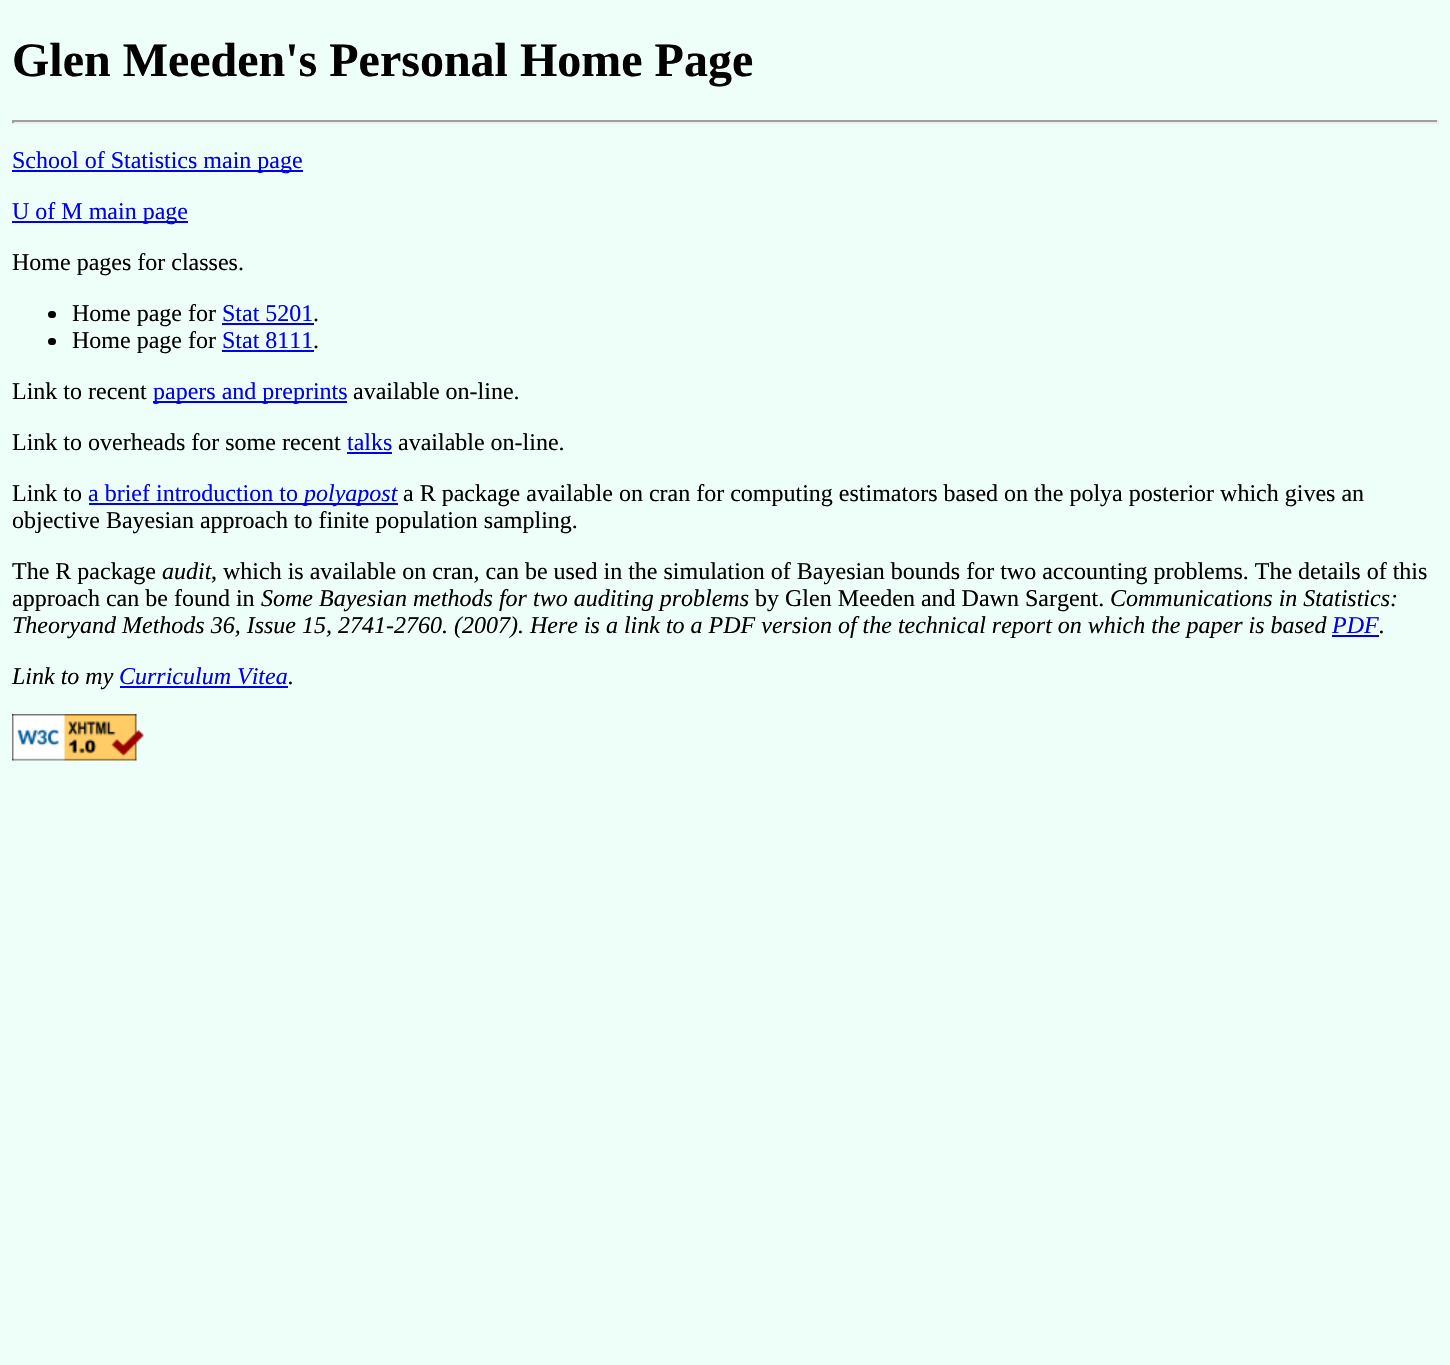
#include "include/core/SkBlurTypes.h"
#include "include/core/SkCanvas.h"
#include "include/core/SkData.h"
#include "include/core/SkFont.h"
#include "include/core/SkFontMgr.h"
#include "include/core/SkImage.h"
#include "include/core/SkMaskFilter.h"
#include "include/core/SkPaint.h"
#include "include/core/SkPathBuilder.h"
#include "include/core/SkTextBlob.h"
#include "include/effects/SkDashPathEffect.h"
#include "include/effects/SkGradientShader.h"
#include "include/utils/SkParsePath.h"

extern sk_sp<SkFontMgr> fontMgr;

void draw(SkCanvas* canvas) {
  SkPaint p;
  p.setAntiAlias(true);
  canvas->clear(SkColorSetRGB(238, 255, 250));
  p.setColor(SkColorSetRGB(159, 159, 159));
  canvas->drawRect(SkRect::MakeLTRB(12, 120, 1439, 122), p);
  p.setColor(SkColorSetRGB(238, 238, 238));
  canvas->drawRect(SkRect::MakeLTRB(1437, 120, 1439, 123), p);
  canvas->drawRect(SkRect::MakeLTRB(12, 122, 1439, 124), p);
  p.setColor(SkColorSetRGB(159, 159, 159));
  canvas->drawRect(SkRect::MakeLTRB(12, 120, 14, 123), p);
  p.setColor(SkColorSetRGB(0, 0, 238));
  canvas->drawRect(SkRect::MakeLTRB(12, 170, 303, 172), p);
  canvas->drawRect(SkRect::MakeLTRB(12, 221, 188, 223), p);
  p.setColor(SK_ColorBLACK);
  canvas->drawRoundRect(SkRect::MakeLTRB(48, 311, 56, 318), 3.5f, 3.5f, p);
  p.setColor(SkColorSetRGB(0, 0, 238));
  canvas->drawRect(SkRect::MakeLTRB(222, 323, 314, 325), p);
  p.setColor(SK_ColorBLACK);
  canvas->drawRoundRect(SkRect::MakeLTRB(48, 338, 56, 345), 3.5f, 3.5f, p);
  p.setColor(SkColorSetRGB(0, 0, 238));
  canvas->drawRect(SkRect::MakeLTRB(222, 350, 314, 352), p);
  canvas->drawRect(SkRect::MakeLTRB(153, 401, 347, 403), p);
  canvas->drawRect(SkRect::MakeLTRB(347, 452, 392, 454), p);
  canvas->drawRect(SkRect::MakeLTRB(89, 503, 398, 505), p);
  canvas->drawRect(SkRect::MakeLTRB(1332, 635, 1379, 637), p);
  canvas->drawRect(SkRect::MakeLTRB(120, 686, 288, 688), p);
  canvas->drawImageRect(SkImages::DeferredFromEncodedData(SkData::MakeFromFileName("images/1.png")), SkRect::MakeLTRB(12, 714, 144, 761), SkSamplingOptions());
  SkFont font1(fontMgr->matchFamilyStyle("Liberation Serif", SkFontStyle::Bold()), 48);
  font1.setSubpixel(true);
  p.setColor(SK_ColorBLACK);
  canvas->drawString("Glen Meeden's Personal Home Page", 12, 76, font1, p);
  SkFont font2(fontMgr->matchFamilyStyle("Liberation Serif", SkFontStyle::Normal()), 24);
  font2.setSubpixel(true);
  p.setColor(SkColorSetRGB(0, 0, 238));
  canvas->drawString("School of Statistics main page", 12, 168, font2, p);
  canvas->drawString("U of M main page", 12, 219, font2, p);
  p.setColor(SK_ColorBLACK);
  canvas->drawString("Home pages for classes.", 12, 270, font2, p);
  canvas->drawString("Home page for", 72, 321, font2, p);
  p.setColor(SkColorSetRGB(0, 0, 238));
  canvas->drawString("Stat 5201", 222, 321, font2, p);
  p.setColor(SK_ColorBLACK);
  canvas->drawString(".", 313, 321, font2, p);
  canvas->drawString("Home page for", 72, 348, font2, p);
  p.setColor(SkColorSetRGB(0, 0, 238));
  canvas->drawString("Stat 8111", 222, 348, font2, p);
  p.setColor(SK_ColorBLACK);
  canvas->drawString(".", 313, 348, font2, p);
  canvas->drawString("Link to recent", 12, 399, font2, p);
  p.setColor(SkColorSetRGB(0, 0, 238));
  canvas->drawString("papers and preprints", 153, 399, font2, p);
  p.setColor(SK_ColorBLACK);
  canvas->drawString("available on-line.", 353, 399, font2, p);
  canvas->drawString("Link to overheads for some recent", 12, 450, font2, p);
  p.setColor(SkColorSetRGB(0, 0, 238));
  canvas->drawString("talks", 347, 450, font2, p);
  p.setColor(SK_ColorBLACK);
  canvas->drawString("available on-line.", 398, 450, font2, p);
  canvas->drawString("Link to", 12, 501, font2, p);
  p.setColor(SkColorSetRGB(0, 0, 238));
  canvas->drawString("a brief introduction to", 88, 501, font2, p);
  SkFont font3(fontMgr->matchFamilyStyle("Liberation Serif", SkFontStyle::Italic()), 24);
  font3.setSubpixel(true);
  canvas->drawString("polyapost", 304, 501, font3, p);
  p.setColor(SK_ColorBLACK);
  canvas->drawString("a R package available on cran for computing estimators based on the polya posterior which gives an", 403, 501, font2, p);
  canvas->drawString("objective Bayesian approach to finite population sampling.", 12, 528, font2, p);
  canvas->drawString("The R package", 12, 579, font2, p);
  canvas->drawString("audit", 162, 579, font3, p);
  canvas->drawString(", which is available on cran, can be used in the simulation of Bayesian bounds for two accounting problems. The details of this", 211, 579, font2, p);
  canvas->drawString("approach can be found in", 12, 606, font2, p);
  canvas->drawString("Some Bayesian methods for two auditing problems", 261, 606, font3, p);
  canvas->drawString("by Glen Meeden and Dawn Sargent.", 755, 606, font2, p);
  canvas->drawString("Communications in Statistics:", 1110, 606, font3, p);
  canvas->drawString("Theoryand Methods 36, Issue 15, 2741-2760. (2007). Here is a link to a PDF version of the technical report on which the paper is based", 12, 633, font3, p);
  p.setColor(SkColorSetRGB(0, 0, 238));
  canvas->drawString("PDF", 1332, 633, font3, p);
  p.setColor(SK_ColorBLACK);
  canvas->drawString(".", 1379, 633, font3, p);
  canvas->drawString("Link to my", 12, 684, font3, p);
  p.setColor(SkColorSetRGB(0, 0, 238));
  canvas->drawString("Curriculum Vitea", 119, 684, font3, p);
  p.setColor(SK_ColorBLACK);
  canvas->drawString(".", 288, 684, font3, p);
}
